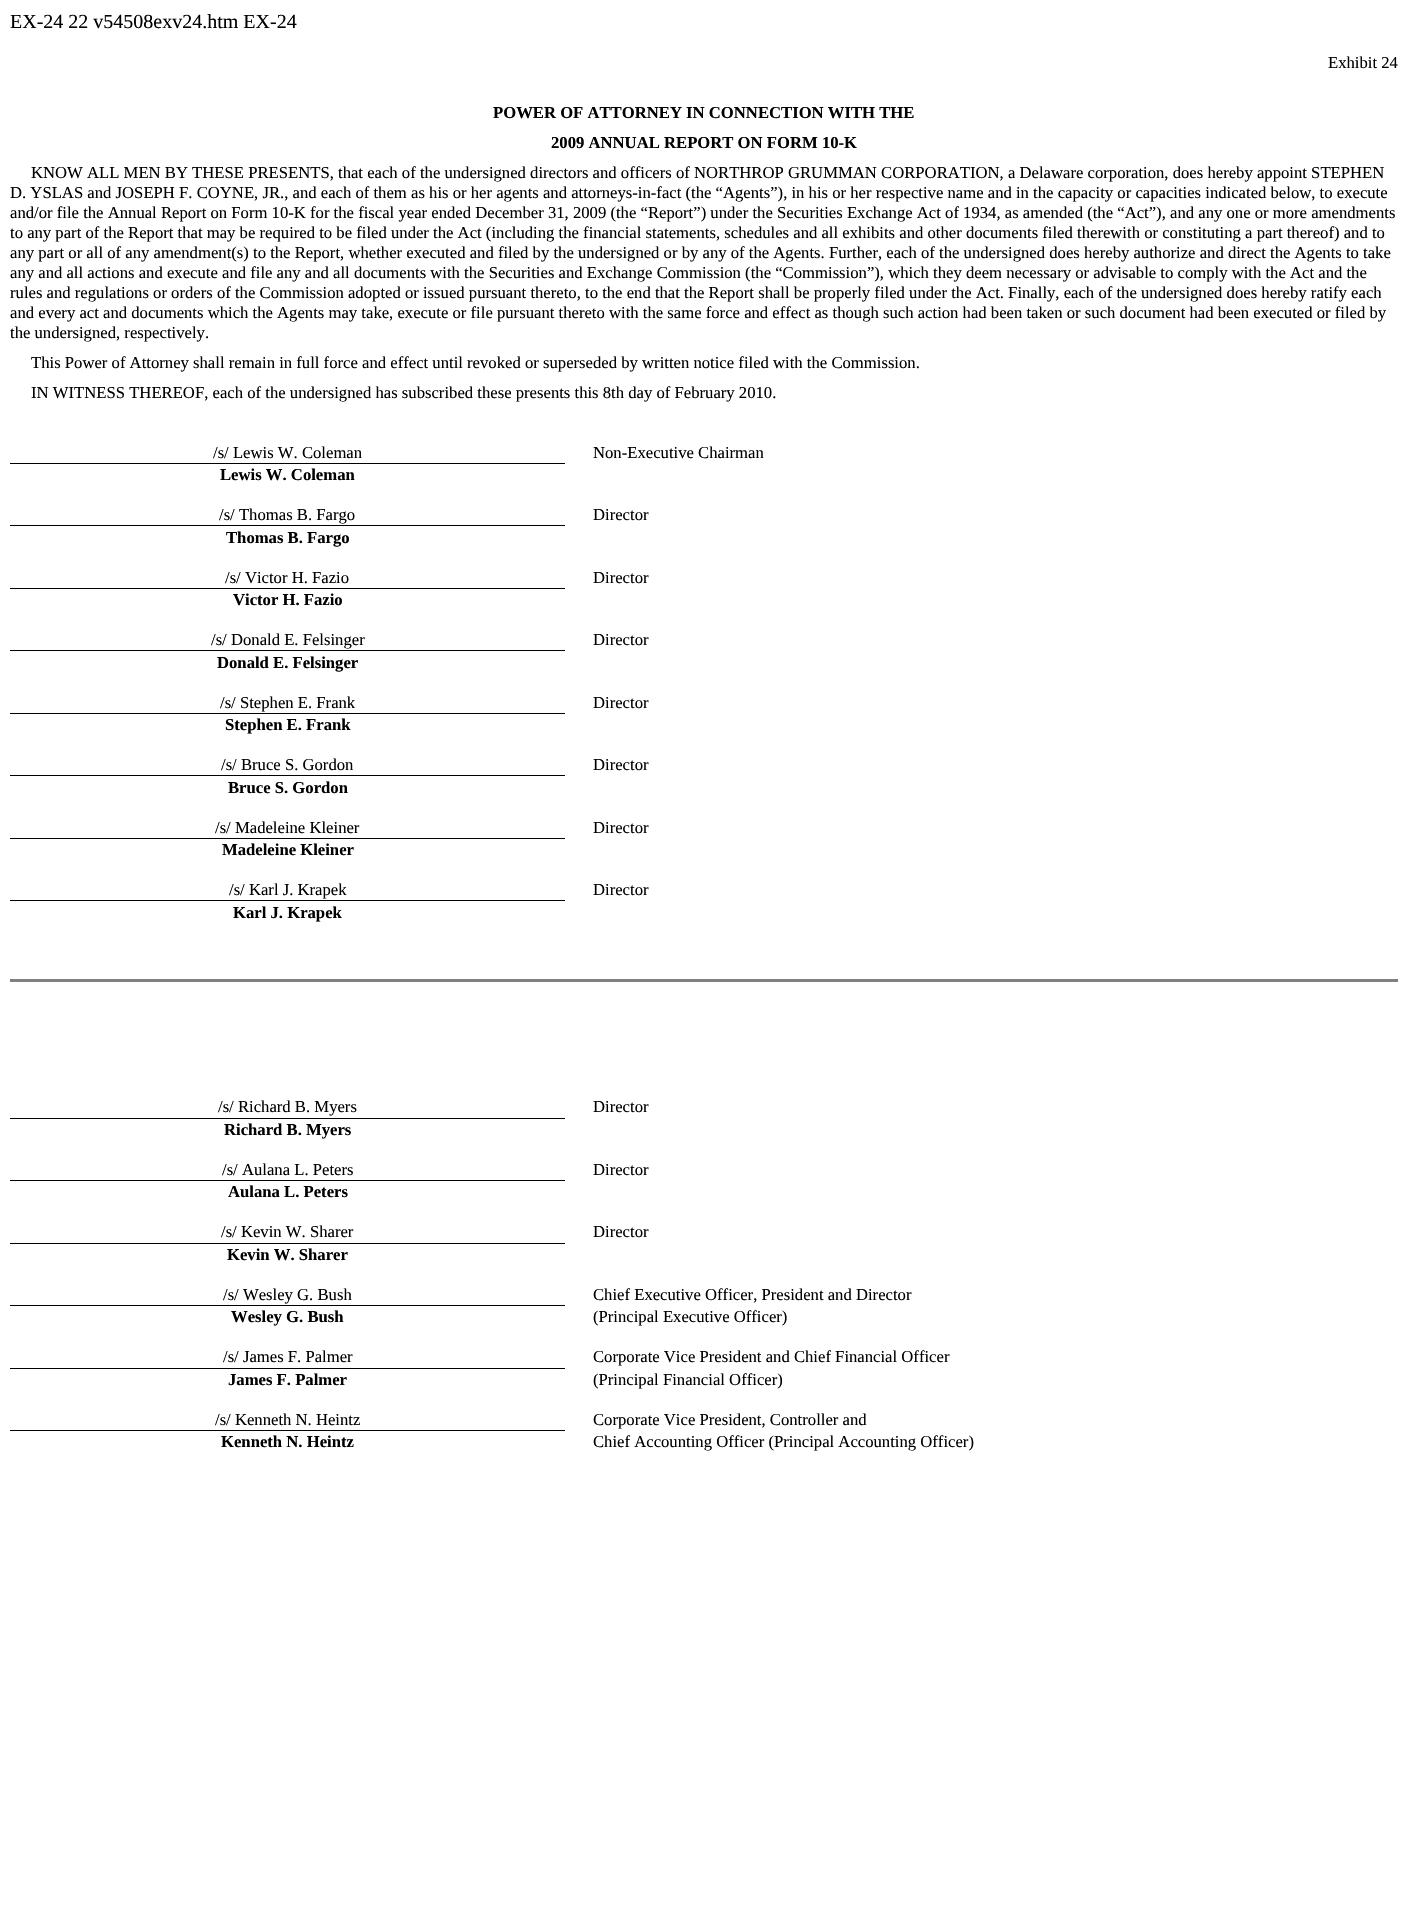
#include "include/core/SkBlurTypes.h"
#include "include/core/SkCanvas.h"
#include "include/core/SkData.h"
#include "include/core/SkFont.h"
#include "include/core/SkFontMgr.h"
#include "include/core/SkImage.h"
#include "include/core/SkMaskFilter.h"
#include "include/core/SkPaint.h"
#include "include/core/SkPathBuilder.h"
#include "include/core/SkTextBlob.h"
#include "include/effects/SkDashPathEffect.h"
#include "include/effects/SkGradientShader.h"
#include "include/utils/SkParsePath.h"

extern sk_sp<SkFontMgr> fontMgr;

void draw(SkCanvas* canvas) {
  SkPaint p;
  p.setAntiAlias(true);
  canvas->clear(SK_ColorWHITE);
  p.setColor(SK_ColorBLACK);
  canvas->drawRect(SkRect::MakeLTRB(10, 463, 565, 464), p);
  canvas->drawRect(SkRect::MakeLTRB(10, 525, 565, 526), p);
  canvas->drawRect(SkRect::MakeLTRB(10, 588, 565, 589), p);
  canvas->drawRect(SkRect::MakeLTRB(10, 650, 565, 651), p);
  canvas->drawRect(SkRect::MakeLTRB(10, 713, 565, 714), p);
  canvas->drawRect(SkRect::MakeLTRB(10, 775, 565, 776), p);
  canvas->drawRect(SkRect::MakeLTRB(10, 838, 565, 839), p);
  canvas->drawRect(SkRect::MakeLTRB(10, 900, 565, 901), p);
  p.setColor(SkColorSetRGB(128, 128, 128));
  canvas->drawRect(SkRect::MakeLTRB(10, 979, 1398, 982), p);
  p.setColor(SK_ColorBLACK);
  canvas->drawRect(SkRect::MakeLTRB(10, 1118, 565, 1119), p);
  canvas->drawRect(SkRect::MakeLTRB(10, 1180, 565, 1181), p);
  canvas->drawRect(SkRect::MakeLTRB(10, 1243, 565, 1244), p);
  canvas->drawRect(SkRect::MakeLTRB(10, 1305, 565, 1306), p);
  canvas->drawRect(SkRect::MakeLTRB(10, 1368, 565, 1369), p);
  canvas->drawRect(SkRect::MakeLTRB(10, 1430, 565, 1431), p);
  SkFont font1(fontMgr->matchFamilyStyle("Liberation Serif", SkFontStyle::Normal()), 20);
  font1.setSubpixel(true);
  canvas->drawString("EX-24 22 v54508exv24.htm EX-24", 10, 28, font1, p);
  SkFont font2(fontMgr->matchFamilyStyle("Liberation Serif", SkFontStyle::Normal()), 16.67f);
  font2.setSubpixel(true);
  canvas->drawString("Exhibit 24", 1328, 68, font2, p);
  SkFont font3(fontMgr->matchFamilyStyle("Liberation Serif", SkFontStyle::Bold()), 16.67f);
  font3.setSubpixel(true);
  canvas->drawString("POWER OF ATTORNEY IN CONNECTION WITH THE", 493, 118, font3, p);
  canvas->drawString("2009 ANNUAL REPORT ON FORM 10-K", 551, 148, font3, p);
  canvas->drawString("KNOW ALL MEN BY THESE PRESENTS, that each of the undersigned directors and officers of NORTHROP GRUMMAN CORPORATION, a Delaware corporation, does hereby appoint STEPHEN", 31, 178, font2, p);
  canvas->drawString("D. YSLAS and JOSEPH F. COYNE, JR., and each of them as his or her agents and attorneys-in-fact (the “Agents”), in his or her respective name and in the capacity or capacities indicated below, to execute", 10, 198, font2, p);
  canvas->drawString("and/or file the Annual Report on Form 10-K for the fiscal year ended December 31, 2009 (the “Report”) under the Securities Exchange Act of 1934, as amended (the “Act”), and any one or more amendments", 10, 218, font2, p);
  canvas->drawString("to any part of the Report that may be required to be filed under the Act (including the financial statements, schedules and all exhibits and other documents filed therewith or constituting a part thereof) and to", 10, 238, font2, p);
  canvas->drawString("any part or all of any amendment(s) to the Report, whether executed and filed by the undersigned or by any of the Agents. Further, each of the undersigned does hereby authorize and direct the Agents to take", 10, 258, font2, p);
  canvas->drawString("any and all actions and execute and file any and all documents with the Securities and Exchange Commission (the “Commission”), which they deem necessary or advisable to comply with the Act and the", 10, 278, font2, p);
  canvas->drawString("rules and regulations or orders of the Commission adopted or issued pursuant thereto, to the end that the Report shall be properly filed under the Act. Finally, each of the undersigned does hereby ratify each", 10, 298, font2, p);
  canvas->drawString("and every act and documents which the Agents may take, execute or file pursuant thereto with the same force and effect as though such action had been taken or such document had been executed or filed by", 10, 318, font2, p);
  canvas->drawString("the undersigned, respectively.", 10, 338, font2, p);
  canvas->drawString("This Power of Attorney shall remain in full force and effect until revoked or superseded by written notice filed with the Commission.", 31, 368, font2, p);
  canvas->drawString("IN WITNESS THEREOF, each of the undersigned has subscribed these presents this 8th day of February 2010.", 31, 398, font2, p);
  canvas->drawString("/s/ Lewis W. Coleman", 213, 458, font2, p);
  canvas->drawString("Non-Executive Chairman", 593, 458, font2, p);
  canvas->drawString("Lewis W. Coleman", 220, 480, font3, p);
  canvas->drawString("/s/ Thomas B. Fargo", 219, 520, font2, p);
  canvas->drawString("Director", 593, 520, font2, p);
  canvas->drawString("Thomas B. Fargo", 226, 543, font3, p);
  canvas->drawString("/s/ Victor H. Fazio", 225, 583, font2, p);
  canvas->drawString("Director", 593, 583, font2, p);
  canvas->drawString("Victor H. Fazio", 233, 605, font3, p);
  canvas->drawString("/s/ Donald E. Felsinger", 211, 645, font2, p);
  canvas->drawString("Director", 593, 645, font2, p);
  canvas->drawString("Donald E. Felsinger", 217, 668, font3, p);
  canvas->drawString("/s/ Stephen E. Frank", 220, 708, font2, p);
  canvas->drawString("Director", 593, 708, font2, p);
  canvas->drawString("Stephen E. Frank", 225, 730, font3, p);
  canvas->drawString("/s/ Bruce S. Gordon", 221, 770, font2, p);
  canvas->drawString("Director", 593, 770, font2, p);
  canvas->drawString("Bruce S. Gordon", 228, 793, font3, p);
  canvas->drawString("/s/ Madeleine Kleiner", 215, 833, font2, p);
  canvas->drawString("Director", 593, 833, font2, p);
  canvas->drawString("Madeleine Kleiner", 222, 855, font3, p);
  canvas->drawString("/s/ Karl J. Krapek", 229, 895, font2, p);
  canvas->drawString("Director", 593, 895, font2, p);
  canvas->drawString("Karl J. Krapek", 233, 918, font3, p);
  canvas->drawString("/s/ Richard B. Myers", 218, 1112, font2, p);
  canvas->drawString("Director", 593, 1112, font2, p);
  canvas->drawString("Richard B. Myers", 224, 1135, font3, p);
  canvas->drawString("/s/ Aulana L. Peters", 222, 1175, font2, p);
  canvas->drawString("Director", 593, 1175, font2, p);
  canvas->drawString("Aulana L. Peters", 228, 1197, font3, p);
  canvas->drawString("/s/ Kevin W. Sharer", 221, 1237, font2, p);
  canvas->drawString("Director", 593, 1237, font2, p);
  canvas->drawString("Kevin W. Sharer", 227, 1260, font3, p);
  canvas->drawString("/s/ Wesley G. Bush", 223, 1300, font2, p);
  canvas->drawString("Chief Executive Officer, President and Director", 593, 1300, font2, p);
  canvas->drawString("Wesley G. Bush", 231, 1322, font3, p);
  canvas->drawString("(Principal Executive Officer)", 593, 1322, font2, p);
  canvas->drawString("/s/ James F. Palmer", 223, 1362, font2, p);
  canvas->drawString("Corporate Vice President and Chief Financial Officer", 593, 1362, font2, p);
  canvas->drawString("James F. Palmer", 228, 1385, font3, p);
  canvas->drawString("(Principal Financial Officer)", 593, 1385, font2, p);
  canvas->drawString("/s/ Kenneth N. Heintz", 215, 1425, font2, p);
  canvas->drawString("Corporate Vice President, Controller and", 593, 1425, font2, p);
  canvas->drawString("Kenneth N. Heintz", 221, 1447, font3, p);
  canvas->drawString("Chief Accounting Officer (Principal Accounting Officer)", 593, 1447, font2, p);
}
